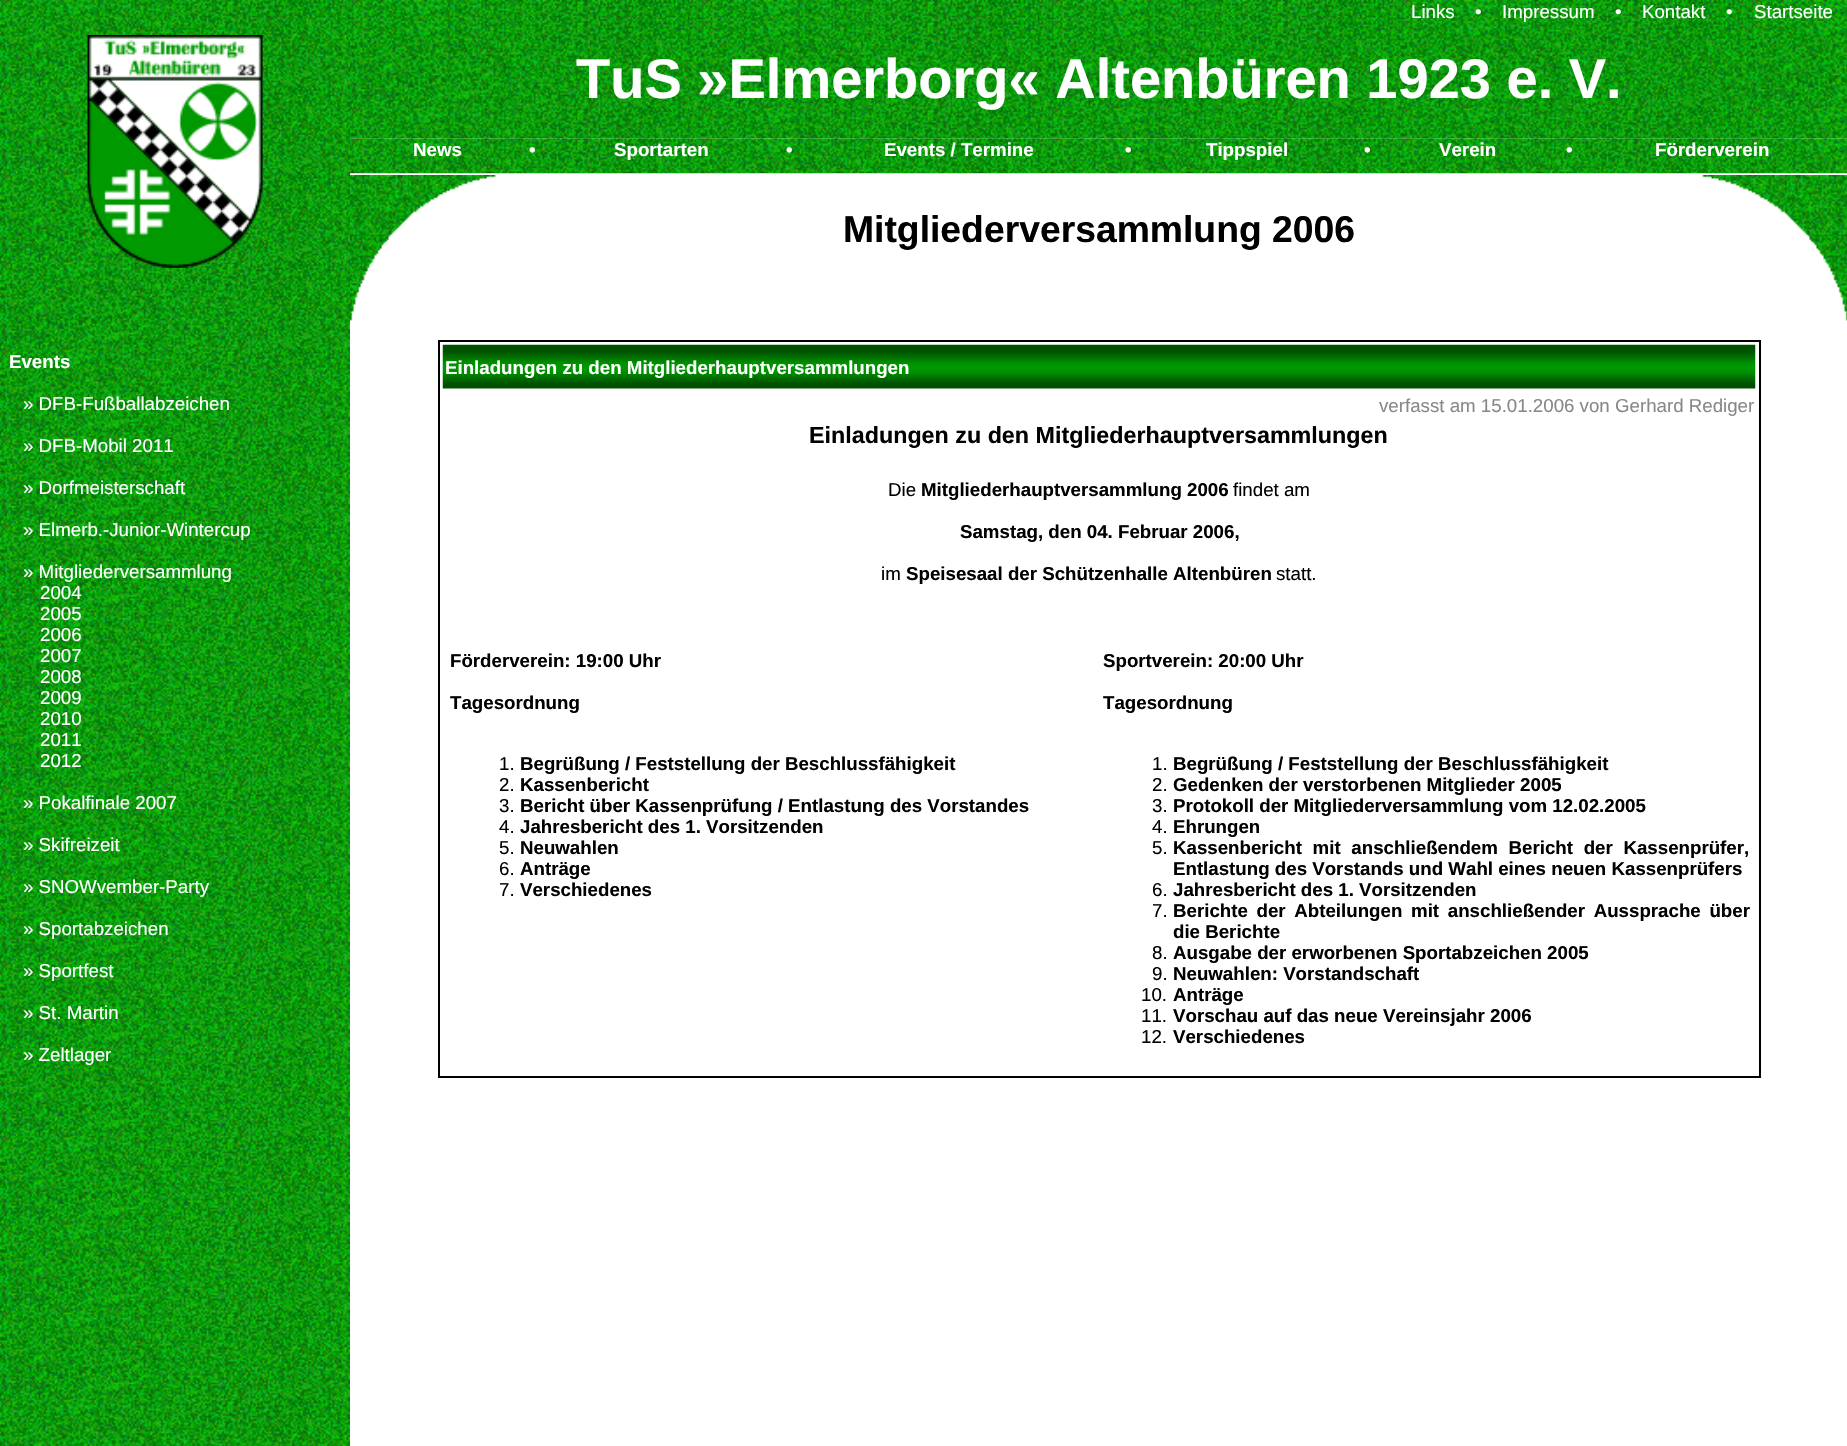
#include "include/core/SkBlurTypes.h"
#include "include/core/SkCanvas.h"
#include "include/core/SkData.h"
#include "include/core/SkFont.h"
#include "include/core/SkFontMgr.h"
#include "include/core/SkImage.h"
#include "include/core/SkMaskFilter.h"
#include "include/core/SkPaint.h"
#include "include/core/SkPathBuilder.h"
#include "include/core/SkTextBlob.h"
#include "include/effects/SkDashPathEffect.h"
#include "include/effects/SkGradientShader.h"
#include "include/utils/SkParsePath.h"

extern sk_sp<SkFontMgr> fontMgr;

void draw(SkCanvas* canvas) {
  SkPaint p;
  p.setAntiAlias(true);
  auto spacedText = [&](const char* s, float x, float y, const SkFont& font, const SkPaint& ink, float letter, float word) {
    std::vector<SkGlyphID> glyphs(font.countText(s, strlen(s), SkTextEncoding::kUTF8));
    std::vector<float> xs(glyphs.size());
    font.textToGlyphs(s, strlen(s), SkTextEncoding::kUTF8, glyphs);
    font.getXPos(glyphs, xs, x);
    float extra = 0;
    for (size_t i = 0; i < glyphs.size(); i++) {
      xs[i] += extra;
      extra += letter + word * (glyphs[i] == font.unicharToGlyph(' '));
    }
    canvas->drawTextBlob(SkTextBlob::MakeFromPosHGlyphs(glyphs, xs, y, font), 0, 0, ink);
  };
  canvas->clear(SK_ColorWHITE);
  canvas->drawImageRect(SkImages::DeferredFromEncodedData(SkData::MakeFromFileName("images/1.png")), SkRect::MakeLTRB(0, 0, 350, 1446), SkSamplingOptions());
  canvas->drawImageRect(SkImages::DeferredFromEncodedData(SkData::MakeFromFileName("images/2.png")), SkRect::MakeLTRB(350, 0, 1847, 21), SkSamplingOptions());
  canvas->drawImageRect(SkImages::DeferredFromEncodedData(SkData::MakeFromFileName("images/3.png")), SkRect::MakeLTRB(350, 21, 1847, 139), SkSamplingOptions());
  canvas->drawImageRect(SkImages::DeferredFromEncodedData(SkData::MakeFromFileName("images/4.png")), SkRect::MakeLTRB(350, 138, 1847, 174), SkSamplingOptions());
  p.setStyle(SkPaint::kStroke_Style);
  p.setStrokeWidth(2);
  p.setColor(SK_ColorBLACK);
  canvas->drawRect(SkRect::MakeLTRB(439, 341, 1760, 1077), p);
  canvas->drawImageRect(SkImages::DeferredFromEncodedData(SkData::MakeFromFileName("images/5.png")), SkRect::MakeLTRB(442, 344, 1756, 389), SkSamplingOptions());
  canvas->drawImageRect(SkImages::DeferredFromEncodedData(SkData::MakeFromFileName("images/6.png")), SkRect::MakeLTRB(87, 35, 263, 268), SkSamplingOptions());
  canvas->drawImageRect(SkImages::DeferredFromEncodedData(SkData::MakeFromFileName("images/7.png")), SkRect::MakeLTRB(350, 175, 496, 321), SkSamplingOptions());
  canvas->drawImageRect(SkImages::DeferredFromEncodedData(SkData::MakeFromFileName("images/8.png")), SkRect::MakeLTRB(1702, 175, 1847, 321), SkSamplingOptions());
  SkFont font1(fontMgr->matchFamilyStyle("Liberation Sans", SkFontStyle::Normal()), 18.7f);
  font1.setSubpixel(true);
  p.setStyle(SkPaint::kFill_Style);
  p.setColor(SK_ColorWHITE);
  canvas->drawString("Links", 1411, 18, font1, p);
  canvas->drawString("•", 1475, 18, font1, p);
  canvas->drawString("Impressum", 1502, 18, font1, p);
  canvas->drawString("•", 1615, 18, font1, p);
  canvas->drawString("Kontakt", 1642, 18, font1, p);
  canvas->drawString("•", 1726, 18, font1, p);
  canvas->drawString("Startseite", 1754, 18, font1, p);
  SkFont font2(fontMgr->matchFamilyStyle("Liberation Sans", SkFontStyle::Bold()), 18.7f);
  font2.setSubpixel(true);
  canvas->drawString("Events", 9, 368, font2, p);
  canvas->drawString("» DFB-Fußballabzeichen", 23, 410, font1, p);
  canvas->drawString("» DFB-Mobil 2011", 23, 452, font1, p);
  canvas->drawString("» Dorfmeisterschaft", 23, 494, font1, p);
  canvas->drawString("» Elmerb.-Junior-Wintercup", 23, 536, font1, p);
  canvas->drawString("» Mitgliederversammlung", 23, 578, font1, p);
  canvas->drawString("2004", 40, 599, font1, p);
  canvas->drawString("2005", 40, 620, font1, p);
  canvas->drawString("2006", 40, 641, font1, p);
  canvas->drawString("2007", 40, 662, font1, p);
  canvas->drawString("2008", 40, 683, font1, p);
  canvas->drawString("2009", 40, 704, font1, p);
  canvas->drawString("2010", 40, 725, font1, p);
  canvas->drawString("2011", 40, 746, font1, p);
  canvas->drawString("2012", 40, 767, font1, p);
  canvas->drawString("» Pokalfinale 2007", 23, 809, font1, p);
  canvas->drawString("» Skifreizeit", 23, 851, font1, p);
  canvas->drawString("» SNOWvember-Party", 23, 893, font1, p);
  canvas->drawString("» Sportabzeichen", 23, 935, font1, p);
  canvas->drawString("» Sportfest", 23, 977, font1, p);
  canvas->drawString("» St. Martin", 23, 1019, font1, p);
  canvas->drawString("» Zeltlager", 23, 1061, font1, p);
  SkFont font3(fontMgr->matchFamilyStyle("Liberation Sans", SkFontStyle::Bold()), 56);
  font3.setSubpixel(true);
  canvas->drawString("TuS »Elmerborg« Altenbüren 1923 e. V.", 576, 98, font3, p);
  canvas->drawString("News", 413, 156, font2, p);
  canvas->drawString("•", 529, 156, font2, p);
  canvas->drawString("Sportarten", 614, 156, font2, p);
  canvas->drawString("•", 786, 156, font2, p);
  canvas->drawString("Events / Termine", 884, 156, font2, p);
  canvas->drawString("•", 1125, 156, font2, p);
  canvas->drawString("Tippspiel", 1206, 156, font2, p);
  canvas->drawString("•", 1364, 156, font2, p);
  canvas->drawString("Verein", 1439, 156, font2, p);
  canvas->drawString("•", 1566, 156, font2, p);
  canvas->drawString("Förderverein", 1655, 156, font2, p);
  SkFont font4(fontMgr->matchFamilyStyle("Liberation Sans", SkFontStyle::Bold()), 37.3f);
  font4.setSubpixel(true);
  p.setColor(SK_ColorBLACK);
  canvas->drawString("Mitgliederversammlung 2006", 843, 242, font4, p);
  p.setColor(SK_ColorWHITE);
  canvas->drawString("Einladungen zu den Mitgliederhauptversammlungen", 445, 374, font2, p);
  p.setColor(SkColorSetRGB(136, 136, 136));
  canvas->drawString("verfasst am 15.01.2006 von Gerhard Rediger", 1379, 412, font1, p);
  SkFont font5(fontMgr->matchFamilyStyle("Liberation Sans", SkFontStyle::Bold()), 23.3f);
  font5.setSubpixel(true);
  p.setColor(SK_ColorBLACK);
  canvas->drawString("Einladungen zu den Mitgliederhauptversammlungen", 809, 443, font5, p);
  canvas->drawString("Die", 888, 496, font1, p);
  canvas->drawString("Mitgliederhauptversammlung 2006", 921, 496, font2, p);
  canvas->drawString("findet am", 1233, 496, font1, p);
  canvas->drawString("Samstag, den 04. Februar 2006,", 960, 538, font2, p);
  canvas->drawString("im", 881, 580, font1, p);
  canvas->drawString("Speisesaal der Schützenhalle Altenbüren", 906, 580, font2, p);
  canvas->drawString("statt.", 1276, 580, font1, p);
  canvas->drawString("Förderverein: 19:00 Uhr", 450, 667, font2, p);
  canvas->drawString("Tagesordnung", 450, 709, font2, p);
  canvas->drawString("1.", 499, 770, font1, p);
  canvas->drawString("Begrüßung / Feststellung der Beschlussfähigkeit", 520, 770, font2, p);
  canvas->drawString("2.", 499, 791, font1, p);
  canvas->drawString("Kassenbericht", 520, 791, font2, p);
  canvas->drawString("3.", 499, 812, font1, p);
  canvas->drawString("Bericht über Kassenprüfung / Entlastung des Vorstandes", 520, 812, font2, p);
  canvas->drawString("4.", 499, 833, font1, p);
  canvas->drawString("Jahresbericht des 1. Vorsitzenden", 520, 833, font2, p);
  canvas->drawString("5.", 499, 854, font1, p);
  canvas->drawString("Neuwahlen", 520, 854, font2, p);
  canvas->drawString("6.", 499, 875, font1, p);
  canvas->drawString("Anträge", 520, 875, font2, p);
  canvas->drawString("7.", 499, 896, font1, p);
  canvas->drawString("Verschiedenes", 520, 896, font2, p);
  canvas->drawString("Sportverein: 20:00 Uhr", 1103, 667, font2, p);
  canvas->drawString("Tagesordnung", 1103, 709, font2, p);
  canvas->drawString("1.", 1152, 770, font1, p);
  canvas->drawString("Begrüßung / Feststellung der Beschlussfähigkeit", 1173, 770, font2, p);
  canvas->drawString("2.", 1152, 791, font1, p);
  canvas->drawString("Gedenken der verstorbenen Mitglieder 2005", 1173, 791, font2, p);
  canvas->drawString("3.", 1152, 812, font1, p);
  canvas->drawString("Protokoll der Mitgliederversammlung vom 12.02.2005", 1173, 812, font2, p);
  canvas->drawString("4.", 1152, 833, font1, p);
  canvas->drawString("Ehrungen", 1173, 833, font2, p);
  canvas->drawString("5.", 1152, 854, font1, p);
  spacedText("Kassenbericht mit anschließendem Bericht der Kassenprüfer,", 1173, 854, font2, p, 0, 5.5f);
  canvas->drawString("Entlastung des Vorstands und Wahl eines neuen Kassenprüfers", 1173, 875, font2, p);
  canvas->drawString("6.", 1152, 896, font1, p);
  canvas->drawString("Jahresbericht des 1. Vorsitzenden", 1173, 896, font2, p);
  canvas->drawString("7.", 1152, 917, font1, p);
  spacedText("Berichte der Abteilungen mit anschließender Aussprache über", 1173, 917, font2, p, 0, 3.5f);
  canvas->drawString("die Berichte", 1173, 938, font2, p);
  canvas->drawString("8.", 1152, 959, font1, p);
  canvas->drawString("Ausgabe der erworbenen Sportabzeichen 2005", 1173, 959, font2, p);
  canvas->drawString("9.", 1152, 980, font1, p);
  canvas->drawString("Neuwahlen: Vorstandschaft", 1173, 980, font2, p);
  canvas->drawString("10.", 1141, 1001, font1, p);
  canvas->drawString("Anträge", 1173, 1001, font2, p);
  canvas->drawString("11.", 1141, 1022, font1, p);
  canvas->drawString("Vorschau auf das neue Vereinsjahr 2006", 1173, 1022, font2, p);
  canvas->drawString("12.", 1141, 1043, font1, p);
  canvas->drawString("Verschiedenes", 1173, 1043, font2, p);
}
